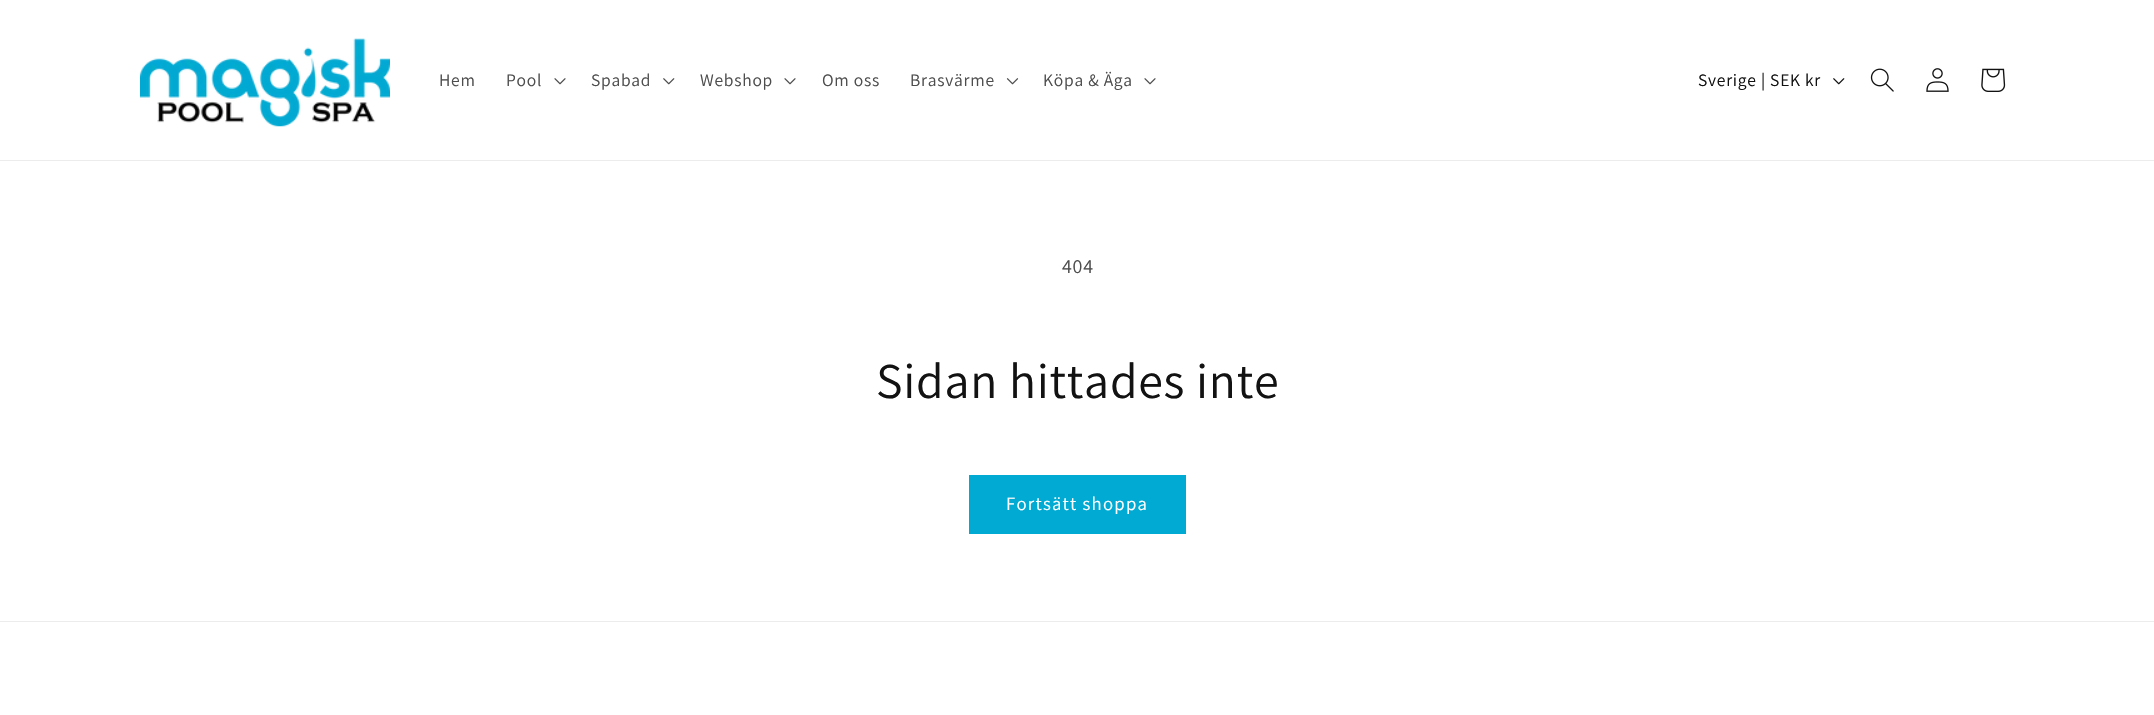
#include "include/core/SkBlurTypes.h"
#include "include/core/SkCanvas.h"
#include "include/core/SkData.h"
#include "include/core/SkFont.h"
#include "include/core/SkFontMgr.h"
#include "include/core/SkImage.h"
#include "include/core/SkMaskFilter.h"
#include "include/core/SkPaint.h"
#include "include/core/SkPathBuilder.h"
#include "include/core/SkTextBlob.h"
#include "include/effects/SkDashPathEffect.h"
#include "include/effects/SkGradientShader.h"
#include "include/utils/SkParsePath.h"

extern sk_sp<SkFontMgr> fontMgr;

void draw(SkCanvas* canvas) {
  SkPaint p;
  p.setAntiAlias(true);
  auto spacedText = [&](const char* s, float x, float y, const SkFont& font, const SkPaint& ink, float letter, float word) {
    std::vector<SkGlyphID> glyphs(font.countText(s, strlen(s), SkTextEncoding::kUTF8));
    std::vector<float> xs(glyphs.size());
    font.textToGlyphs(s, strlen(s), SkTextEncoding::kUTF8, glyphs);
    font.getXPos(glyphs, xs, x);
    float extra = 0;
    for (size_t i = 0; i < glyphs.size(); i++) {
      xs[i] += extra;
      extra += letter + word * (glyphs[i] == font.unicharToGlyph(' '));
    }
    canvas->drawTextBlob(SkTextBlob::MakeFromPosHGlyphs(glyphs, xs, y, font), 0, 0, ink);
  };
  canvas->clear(SK_ColorWHITE);
  p.setColor(SkColorSetRGB(236, 236, 236));
  canvas->drawRect(SkRect::MakeLTRB(0, 160, 2154, 161), p);
  canvas->drawImageRect(SkImages::DeferredFromEncodedData(SkData::MakeFromFileName("images/1.png")), SkRect::MakeLTRB(140, 38, 390, 127), SkSamplingOptions());
  canvas->drawImageRect(SkImages::DeferredFromEncodedData(SkData::MakeFromFileName("images/2.png")), SkRect::MakeLTRB(554, 78, 566, 85), SkSamplingOptions());
  canvas->drawImageRect(SkImages::DeferredFromEncodedData(SkData::MakeFromFileName("images/3.png")), SkRect::MakeLTRB(663, 78, 675, 85), SkSamplingOptions());
  canvas->drawImageRect(SkImages::DeferredFromEncodedData(SkData::MakeFromFileName("images/2.png")), SkRect::MakeLTRB(784, 78, 796, 85), SkSamplingOptions());
  canvas->drawImageRect(SkImages::DeferredFromEncodedData(SkData::MakeFromFileName("images/4.png")), SkRect::MakeLTRB(1006, 78, 1019, 85), SkSamplingOptions());
  canvas->drawImageRect(SkImages::DeferredFromEncodedData(SkData::MakeFromFileName("images/2.png")), SkRect::MakeLTRB(1144, 78, 1156, 85), SkSamplingOptions());
  canvas->drawImageRect(SkImages::DeferredFromEncodedData(SkData::MakeFromFileName("images/5.png")), SkRect::MakeLTRB(1833, 78, 1845, 85), SkSamplingOptions());
  canvas->drawImageRect(SkImages::DeferredFromEncodedData(SkData::MakeFromFileName("images/6.png")), SkRect::MakeLTRB(1870, 68, 1894, 92), SkSamplingOptions());
  canvas->drawImageRect(SkImages::DeferredFromEncodedData(SkData::MakeFromFileName("images/7.png")), SkRect::MakeLTRB(1926, 68, 1949, 92), SkSamplingOptions());
  canvas->drawImageRect(SkImages::DeferredFromEncodedData(SkData::MakeFromFileName("images/8.png")), SkRect::MakeLTRB(1981, 68, 2006, 92), SkSamplingOptions());
  p.setColor(SkColorSetRGB(0, 170, 210));
  canvas->drawRect(SkRect::MakeLTRB(969, 475, 1186, 534), p);
  p.setColor(SkColorSetRGB(236, 236, 236));
  canvas->drawRect(SkRect::MakeLTRB(0, 621, 2154, 622), p);
  SkFont font1(fontMgr->matchFamilyStyle("Assistant", SkFontStyle::Normal()), 17.5f);
  font1.setSubpixel(true);
  p.setColor(SkColorSetRGB(77, 77, 77));
  spacedText("Hem", 439, 86, font1, p, 0.75f, 0);
  spacedText("Pool", 506, 86, font1, p, 0.75f, 0);
  spacedText("Spabad", 591, 86, font1, p, 0.75f, 0);
  spacedText("Webshop", 700, 86, font1, p, 0.75f, 0);
  spacedText("Om oss", 822, 86, font1, p, 0.75f, 0);
  spacedText("Brasvärme", 910, 86, font1, p, 0.75f, 0);
  spacedText("Köpa & Äga", 1043, 86, font1, p, 0.75f, 0);
  p.setColor(SkColorSetRGB(18, 18, 18));
  spacedText("Sverige | SEK kr", 1698, 86, font1, p, 0.75f, 0);
  SkFont font2(fontMgr->matchFamilyStyle("Assistant", SkFontStyle::Normal()), 20);
  font2.setSubpixel(true);
  p.setColor(SkColorSetRGB(77, 77, 77));
  spacedText("404", 1062, 273, font2, p, 0.75f, 0);
  SkFont font3(fontMgr->matchFamilyStyle("Assistant", SkFontStyle::Normal()), 50);
  font3.setSubpixel(true);
  p.setColor(SkColorSetRGB(18, 18, 18));
  spacedText("Sidan hittades inte", 876, 398, font3, p, 0.75f, 0);
  SkFont font4(fontMgr->matchFamilyStyle("Assistant", SkFontStyle::Normal()), 18.75f);
  font4.setSubpixel(true);
  p.setColor(SK_ColorWHITE);
  spacedText("Fortsätt shoppa", 1006, 510, font4, p, 1.25f, 0);
}
